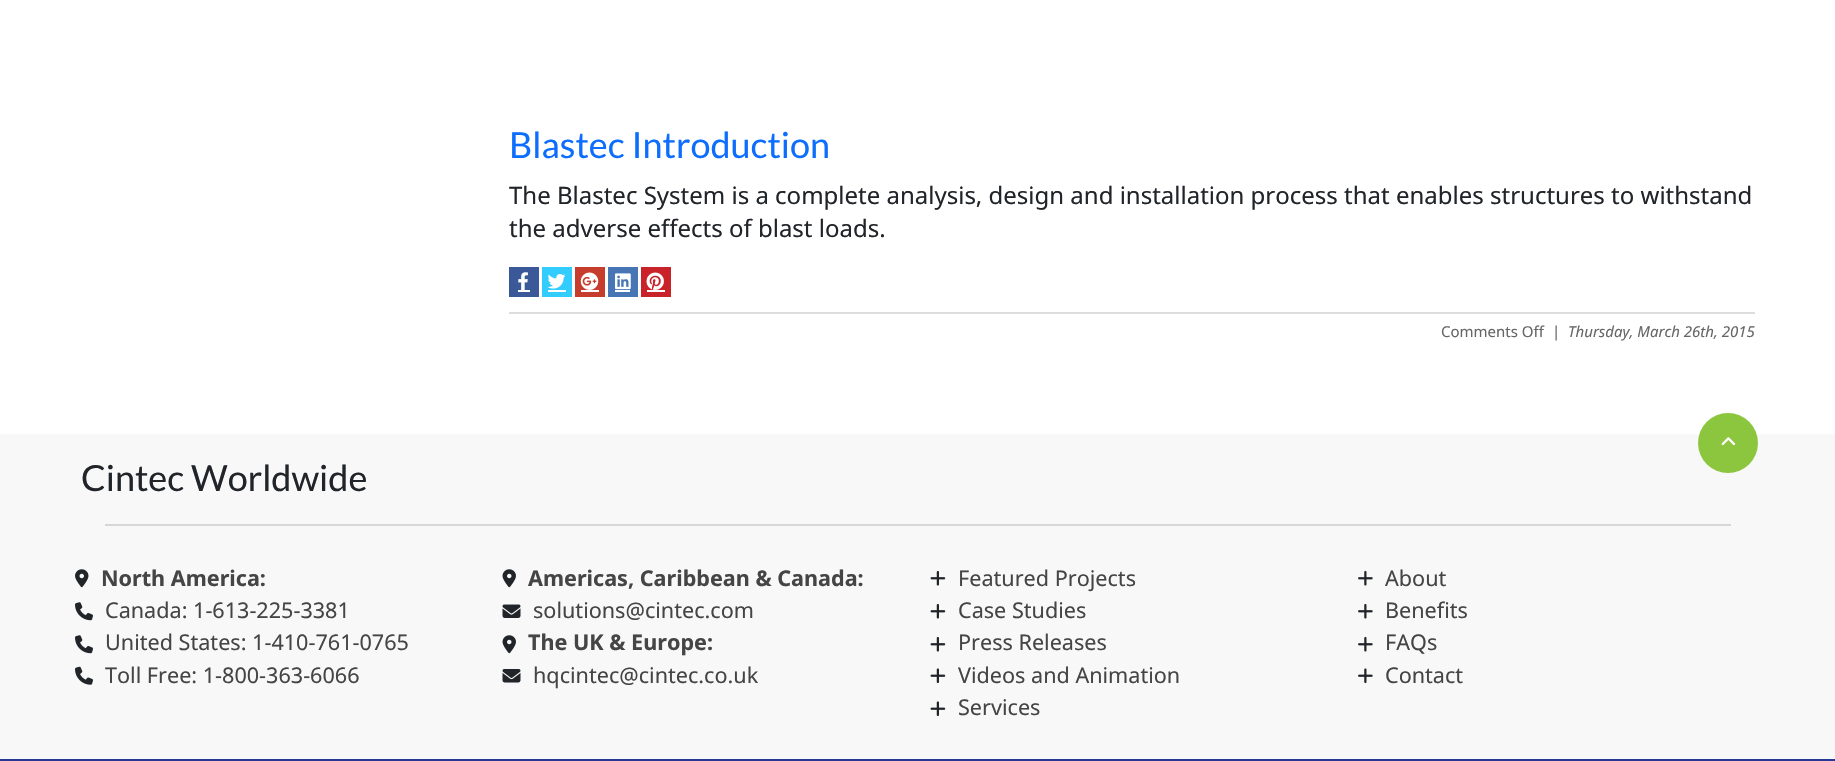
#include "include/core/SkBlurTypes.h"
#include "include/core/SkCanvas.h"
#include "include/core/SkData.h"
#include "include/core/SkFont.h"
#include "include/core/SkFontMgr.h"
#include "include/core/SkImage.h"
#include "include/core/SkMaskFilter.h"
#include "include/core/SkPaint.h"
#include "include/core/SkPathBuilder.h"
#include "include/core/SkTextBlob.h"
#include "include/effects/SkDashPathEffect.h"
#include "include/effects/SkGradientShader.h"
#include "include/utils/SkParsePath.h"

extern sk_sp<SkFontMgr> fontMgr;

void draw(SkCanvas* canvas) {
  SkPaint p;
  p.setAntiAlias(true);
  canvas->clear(SK_ColorWHITE);
  p.setColor(SkColorSetRGB(59, 89, 152));
  canvas->drawRect(SkRect::MakeLTRB(509, 267, 539, 297), p);
  canvas->drawImageRect(SkImages::DeferredFromEncodedData(SkData::MakeFromFileName("images/1.png")), SkRect::MakeLTRB(518, 272, 528, 290), SkSamplingOptions());
  p.setColor(SK_ColorWHITE);
  canvas->drawRect(SkRect::MakeLTRB(518, 290, 530, 292), p);
  p.setColor(SkColorSetRGB(51, 204, 255));
  canvas->drawRect(SkRect::MakeLTRB(542, 267, 572, 297), p);
  canvas->drawImageRect(SkImages::DeferredFromEncodedData(SkData::MakeFromFileName("images/2.png")), SkRect::MakeLTRB(547, 274, 566, 289), SkSamplingOptions());
  p.setColor(SK_ColorWHITE);
  canvas->drawRect(SkRect::MakeLTRB(548, 290, 566, 292), p);
  p.setColor(SkColorSetRGB(198, 61, 45));
  canvas->drawRect(SkRect::MakeLTRB(575, 267, 605, 297), p);
  canvas->drawImageRect(SkImages::DeferredFromEncodedData(SkData::MakeFromFileName("images/3.png")), SkRect::MakeLTRB(580, 272, 599, 290), SkSamplingOptions());
  p.setColor(SK_ColorWHITE);
  canvas->drawRect(SkRect::MakeLTRB(581, 290, 599, 292), p);
  p.setColor(SkColorSetRGB(72, 117, 180));
  canvas->drawRect(SkRect::MakeLTRB(608, 267, 638, 297), p);
  canvas->drawImageRect(SkImages::DeferredFromEncodedData(SkData::MakeFromFileName("images/4.png")), SkRect::MakeLTRB(615, 273, 631, 290), SkSamplingOptions());
  p.setColor(SK_ColorWHITE);
  canvas->drawRect(SkRect::MakeLTRB(615, 290, 630, 292), p);
  p.setColor(SkColorSetRGB(201, 34, 40));
  canvas->drawRect(SkRect::MakeLTRB(641, 267, 671, 297), p);
  canvas->drawImageRect(SkImages::DeferredFromEncodedData(SkData::MakeFromFileName("images/5.png")), SkRect::MakeLTRB(646, 272, 664, 290), SkSamplingOptions());
  p.setColor(SK_ColorWHITE);
  canvas->drawRect(SkRect::MakeLTRB(647, 290, 665, 292), p);
  p.setColor(SkColorSetRGB(221, 221, 221));
  canvas->drawRect(SkRect::MakeLTRB(509, 312, 1755, 314), p);
  p.setColor(SkColorSetRGB(248, 248, 248));
  canvas->drawRect(SkRect::MakeLTRB(0, 434, 1835, 759), p);
  p.setColor(SkColorSetRGB(140, 198, 63));
  canvas->drawCircle(1728, 443, 30, p);
  canvas->drawImageRect(SkImages::DeferredFromEncodedData(SkData::MakeFromFileName("images/6.png")), SkRect::MakeLTRB(1721, 437, 1736, 446), SkSamplingOptions());
  p.setColor(SkColorSetRGB(215, 215, 215));
  canvas->drawRect(SkRect::MakeLTRB(105, 524, 1731, 526), p);
  canvas->drawImageRect(SkImages::DeferredFromEncodedData(SkData::MakeFromFileName("images/7.png")), SkRect::MakeLTRB(75, 569, 89, 588), SkSamplingOptions());
  canvas->drawImageRect(SkImages::DeferredFromEncodedData(SkData::MakeFromFileName("images/8.png")), SkRect::MakeLTRB(75, 602, 93, 621), SkSamplingOptions());
  canvas->drawImageRect(SkImages::DeferredFromEncodedData(SkData::MakeFromFileName("images/8.png")), SkRect::MakeLTRB(75, 635, 93, 654), SkSamplingOptions());
  canvas->drawImageRect(SkImages::DeferredFromEncodedData(SkData::MakeFromFileName("images/9.png")), SkRect::MakeLTRB(75, 666, 93, 685), SkSamplingOptions());
  canvas->drawImageRect(SkImages::DeferredFromEncodedData(SkData::MakeFromFileName("images/10.png")), SkRect::MakeLTRB(502, 569, 516, 588), SkSamplingOptions());
  canvas->drawImageRect(SkImages::DeferredFromEncodedData(SkData::MakeFromFileName("images/11.png")), SkRect::MakeLTRB(502, 604, 521, 618), SkSamplingOptions());
  canvas->drawImageRect(SkImages::DeferredFromEncodedData(SkData::MakeFromFileName("images/10.png")), SkRect::MakeLTRB(502, 635, 516, 654), SkSamplingOptions());
  canvas->drawImageRect(SkImages::DeferredFromEncodedData(SkData::MakeFromFileName("images/12.png")), SkRect::MakeLTRB(502, 669, 521, 683), SkSamplingOptions());
  canvas->drawImageRect(SkImages::DeferredFromEncodedData(SkData::MakeFromFileName("images/13.png")), SkRect::MakeLTRB(930, 571, 946, 586), SkSamplingOptions());
  canvas->drawImageRect(SkImages::DeferredFromEncodedData(SkData::MakeFromFileName("images/13.png")), SkRect::MakeLTRB(930, 604, 946, 619), SkSamplingOptions());
  canvas->drawImageRect(SkImages::DeferredFromEncodedData(SkData::MakeFromFileName("images/13.png")), SkRect::MakeLTRB(930, 637, 946, 652), SkSamplingOptions());
  canvas->drawImageRect(SkImages::DeferredFromEncodedData(SkData::MakeFromFileName("images/14.png")), SkRect::MakeLTRB(930, 668, 946, 683), SkSamplingOptions());
  canvas->drawImageRect(SkImages::DeferredFromEncodedData(SkData::MakeFromFileName("images/14.png")), SkRect::MakeLTRB(930, 701, 946, 716), SkSamplingOptions());
  canvas->drawImageRect(SkImages::DeferredFromEncodedData(SkData::MakeFromFileName("images/15.png")), SkRect::MakeLTRB(1358, 570, 1373, 586), SkSamplingOptions());
  canvas->drawImageRect(SkImages::DeferredFromEncodedData(SkData::MakeFromFileName("images/15.png")), SkRect::MakeLTRB(1358, 603, 1373, 619), SkSamplingOptions());
  canvas->drawImageRect(SkImages::DeferredFromEncodedData(SkData::MakeFromFileName("images/15.png")), SkRect::MakeLTRB(1358, 636, 1373, 652), SkSamplingOptions());
  canvas->drawImageRect(SkImages::DeferredFromEncodedData(SkData::MakeFromFileName("images/16.png")), SkRect::MakeLTRB(1358, 668, 1373, 683), SkSamplingOptions());
  p.setColor(SkColorSetRGB(40, 57, 149));
  canvas->drawRect(SkRect::MakeLTRB(0, 759, 1835, 761), p);
  SkFont font1(fontMgr->matchFamilyStyle("Lato", SkFontStyle::Normal()), 36);
  font1.setSubpixel(true);
  p.setColor(SkColorSetRGB(13, 110, 253));
  canvas->drawString("Blastec Introduction", 509, 158, font1, p);
  SkFont font2(fontMgr->matchFamilyStyle("Noto Sans", SkFontStyle::Normal()), 24);
  font2.setSubpixel(true);
  p.setColor(SkColorSetRGB(33, 37, 41));
  canvas->drawString("The Blastec System is a complete analysis, design and installation process that enables structures to withstand", 509, 204, font2, p);
  canvas->drawString("the adverse effects of blast loads.", 509, 237, font2, p);
  SkFont font3(fontMgr->matchFamilyStyle("Noto Sans", SkFontStyle::Normal()), 15);
  font3.setSubpixel(true);
  p.setColor(SkColorSetRGB(102, 102, 102));
  canvas->drawString("Comments Off", 1441, 337, font3, p);
  canvas->drawString("|", 1552, 337, font3, p);
  SkFont font4(fontMgr->matchFamilyStyle("Noto Sans", SkFontStyle::Italic()), 15);
  font4.setSubpixel(true);
  canvas->drawString("Thursday, March 26th, 2015", 1568, 337, font4, p);
  p.setColor(SkColorSetRGB(33, 37, 41));
  canvas->drawString("Cintec Worldwide", 81, 491, font1, p);
  SkFont font5(fontMgr->matchFamilyStyle("Noto Sans", SkFontStyle::Bold()), 21.6f);
  font5.setSubpixel(true);
  p.setColor(SkColorSetRGB(69, 69, 69));
  canvas->drawString("North America:", 101, 586, font5, p);
  SkFont font6(fontMgr->matchFamilyStyle("Noto Sans", SkFontStyle::Normal()), 21.6f);
  font6.setSubpixel(true);
  canvas->drawString("Canada: 1-613-225-3381", 105, 618, font6, p);
  canvas->drawString("United States: 1-410-761-0765", 105, 650, font6, p);
  canvas->drawString("Toll Free: 1-800-363-6066", 105, 683, font6, p);
  canvas->drawString("Americas, Caribbean & Canada:", 528, 586, font5, p);
  canvas->drawString("solutions@cintec.com", 533, 618, font6, p);
  canvas->drawString("The UK & Europe:", 528, 650, font5, p);
  canvas->drawString("hqcintec@cintec.co.uk", 533, 683, font6, p);
  canvas->drawString("Featured Projects", 958, 586, font6, p);
  canvas->drawString("Case Studies", 958, 618, font6, p);
  canvas->drawString("Press Releases", 958, 650, font6, p);
  canvas->drawString("Videos and Animation", 958, 683, font6, p);
  canvas->drawString("Services", 958, 715, font6, p);
  canvas->drawString("About", 1385, 586, font6, p);
  canvas->drawString("Benefits", 1385, 618, font6, p);
  canvas->drawString("FAQs", 1385, 650, font6, p);
  canvas->drawString("Contact", 1385, 683, font6, p);
}
